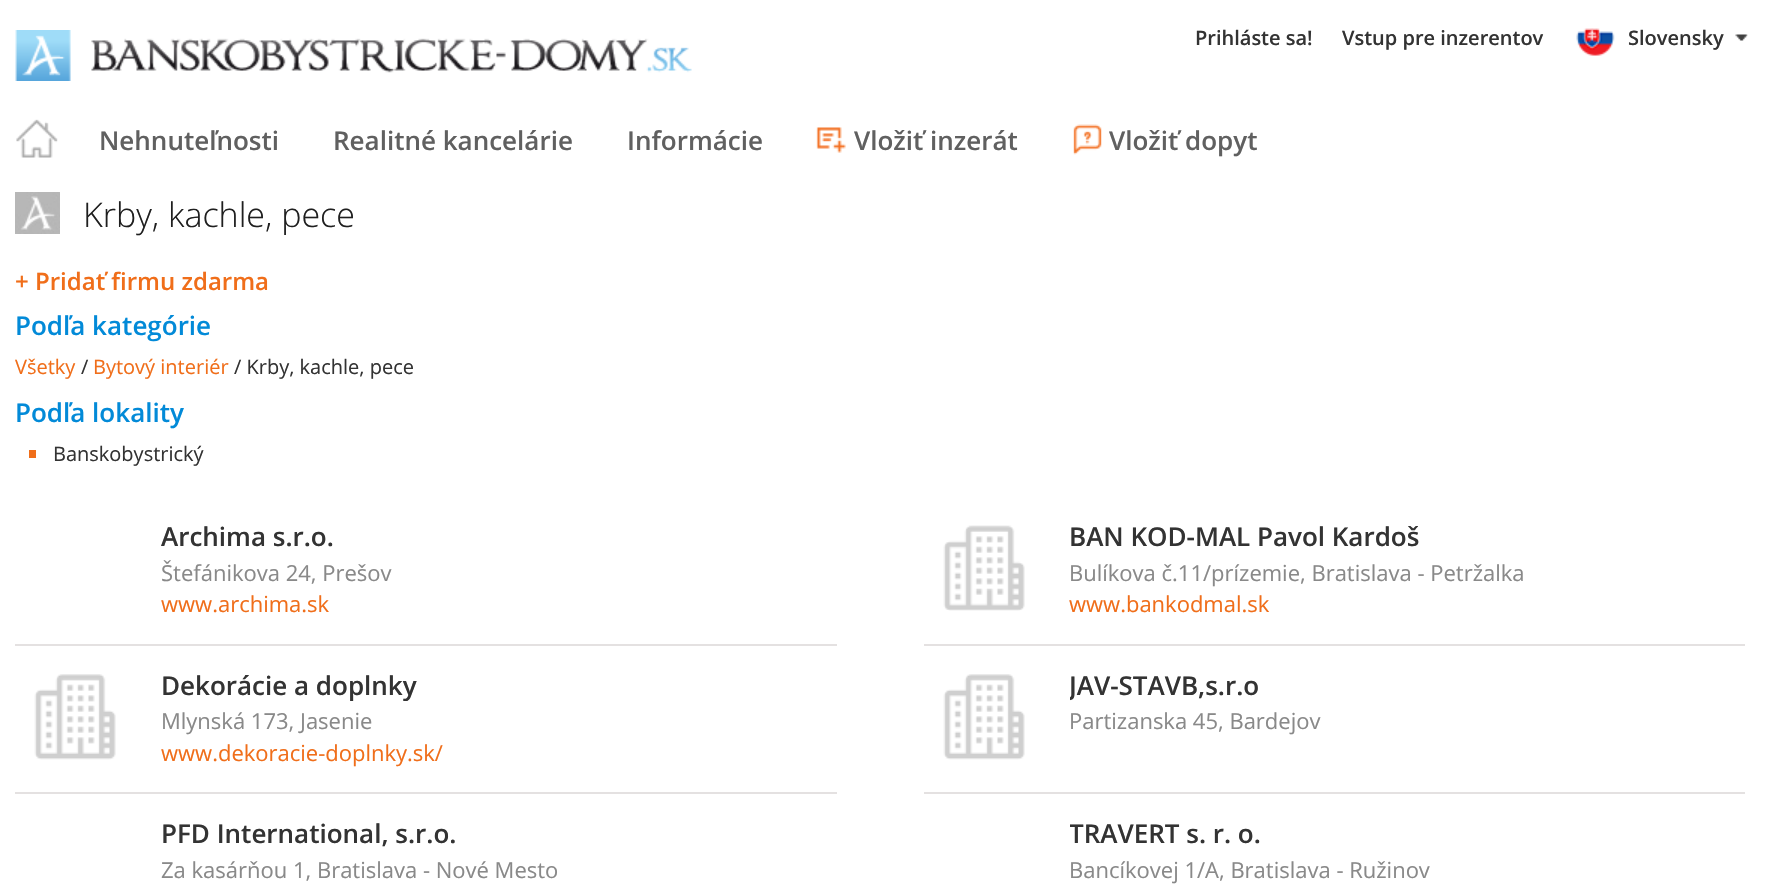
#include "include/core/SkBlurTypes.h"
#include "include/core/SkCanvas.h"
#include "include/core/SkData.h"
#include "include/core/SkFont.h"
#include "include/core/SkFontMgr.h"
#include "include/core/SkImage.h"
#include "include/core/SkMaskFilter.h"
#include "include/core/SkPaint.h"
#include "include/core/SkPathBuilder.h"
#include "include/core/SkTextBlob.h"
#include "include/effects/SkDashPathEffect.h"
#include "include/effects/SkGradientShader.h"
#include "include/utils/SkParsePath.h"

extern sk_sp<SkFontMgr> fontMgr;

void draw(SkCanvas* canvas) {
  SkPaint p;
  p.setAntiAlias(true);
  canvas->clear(SK_ColorWHITE);
  canvas->drawImageRect(SkImages::DeferredFromEncodedData(SkData::MakeFromFileName("images/1.png")), SkRect::MakeLTRB(1576, 28, 1615, 56), SkSamplingOptions());
  canvas->drawImageRect(SkImages::DeferredFromEncodedData(SkData::MakeFromFileName("images/2.png")), SkRect::MakeLTRB(1735, 34, 1748, 41), SkSamplingOptions());
  canvas->drawImageRect(SkImages::DeferredFromEncodedData(SkData::MakeFromFileName("images/3.png")), SkRect::MakeLTRB(16, 119, 58, 158), SkSamplingOptions());
  canvas->drawImageRect(SkImages::DeferredFromEncodedData(SkData::MakeFromFileName("images/4.png")), SkRect::MakeLTRB(816, 127, 846, 153), SkSamplingOptions());
  canvas->drawImageRect(SkImages::DeferredFromEncodedData(SkData::MakeFromFileName("images/5.png")), SkRect::MakeLTRB(1073, 124, 1102, 155), SkSamplingOptions());
  canvas->drawImageRect(SkImages::DeferredFromEncodedData(SkData::MakeFromFileName("images/6.png")), SkRect::MakeLTRB(15, 30, 692, 81), SkSamplingOptions());
  canvas->drawImageRect(SkImages::DeferredFromEncodedData(SkData::MakeFromFileName("images/7.png")), SkRect::MakeLTRB(15, 192, 60, 234), SkSamplingOptions());
  p.setColor(SkColorSetRGB(240, 110, 26));
  canvas->drawRect(SkRect::MakeLTRB(29, 450, 36, 458), p);
  p.setColor(SkColorSetRGB(228, 225, 225));
  canvas->drawRect(SkRect::MakeLTRB(15, 644, 837, 646), p);
  canvas->drawRect(SkRect::MakeLTRB(924, 644, 1745, 646), p);
  canvas->drawImageRect(SkImages::DeferredFromEncodedData(SkData::MakeFromFileName("images/8.png")), SkRect::MakeLTRB(943, 525, 1025, 611), SkSamplingOptions());
  canvas->drawRect(SkRect::MakeLTRB(15, 792, 837, 794), p);
  canvas->drawImageRect(SkImages::DeferredFromEncodedData(SkData::MakeFromFileName("images/9.png")), SkRect::MakeLTRB(34, 674, 116, 760), SkSamplingOptions());
  canvas->drawRect(SkRect::MakeLTRB(924, 792, 1745, 794), p);
  canvas->drawImageRect(SkImages::DeferredFromEncodedData(SkData::MakeFromFileName("images/9.png")), SkRect::MakeLTRB(943, 674, 1025, 760), SkSamplingOptions());
  SkFont font1(fontMgr->matchFamilyStyle("Open Sans", SkFontStyle(600, SkFontStyle::kNormal_Width, SkFontStyle::kUpright_Slant)), 20);
  font1.setSubpixel(true);
  p.setColor(SkColorSetRGB(51, 51, 51));
  canvas->drawString("Prihláste sa!", 1195, 45, font1, p);
  canvas->drawString("Vstup pre inzerentov", 1342, 45, font1, p);
  canvas->drawString("Slovensky", 1628, 45, font1, p);
  SkFont font2(fontMgr->matchFamilyStyle("Open Sans", SkFontStyle(600, SkFontStyle::kNormal_Width, SkFontStyle::kUpright_Slant)), 26);
  font2.setSubpixel(true);
  p.setColor(SkColorSetRGB(96, 96, 96));
  canvas->drawString("Nehnuteľnosti", 99, 150, font2, p);
  canvas->drawString("Realitné kancelárie", 333, 150, font2, p);
  canvas->drawString("Informácie", 627, 150, font2, p);
  canvas->drawString("Vložiť inzerát", 854, 150, font2, p);
  canvas->drawString("Vložiť dopyt", 1109, 150, font2, p);
  SkFont font3(fontMgr->matchFamilyStyle("Open Sans", SkFontStyle(300, SkFontStyle::kNormal_Width, SkFontStyle::kUpright_Slant)), 34);
  font3.setSubpixel(true);
  p.setColor(SkColorSetRGB(31, 31, 31));
  canvas->drawString("Krby, kachle, pece", 83, 227, font3, p);
  SkFont font4(fontMgr->matchFamilyStyle("Open Sans", SkFontStyle(600, SkFontStyle::kNormal_Width, SkFontStyle::kUpright_Slant)), 24);
  font4.setSubpixel(true);
  p.setColor(SkColorSetRGB(240, 110, 26));
  canvas->drawString("+ Pridať firmu zdarma", 15, 290, font4, p);
  p.setColor(SkColorSetRGB(2, 138, 216));
  canvas->drawString("Podľa kategórie", 15, 335, font2, p);
  SkFont font5(fontMgr->matchFamilyStyle("Open Sans", SkFontStyle::Normal()), 20);
  font5.setSubpixel(true);
  p.setColor(SkColorSetRGB(240, 110, 26));
  canvas->drawString("Všetky", 15, 374, font5, p);
  p.setColor(SkColorSetRGB(51, 51, 51));
  canvas->drawString("/", 81, 374, font5, p);
  p.setColor(SkColorSetRGB(240, 110, 26));
  canvas->drawString("Bytový interiér", 93, 374, font5, p);
  p.setColor(SkColorSetRGB(51, 51, 51));
  canvas->drawString("/ Krby, kachle, pece", 234, 374, font5, p);
  p.setColor(SkColorSetRGB(2, 138, 216));
  canvas->drawString("Podľa lokality", 15, 422, font2, p);
  p.setColor(SkColorSetRGB(51, 51, 51));
  canvas->drawString("Banskobystrický", 53, 461, font5, p);
  canvas->drawString("Archima s.r.o.", 161, 546, font2, p);
  SkFont font6(fontMgr->matchFamilyStyle("Open Sans", SkFontStyle::Normal()), 22);
  font6.setSubpixel(true);
  p.setColor(SkColorSetRGB(137, 137, 137));
  canvas->drawString("Štefánikova 24, Prešov", 161, 581, font6, p);
  p.setColor(SkColorSetRGB(240, 110, 26));
  canvas->drawString("www.archima.sk", 161, 612, font6, p);
  p.setColor(SkColorSetRGB(51, 51, 51));
  canvas->drawString("BAN KOD-MAL Pavol Kardoš", 1069, 546, font2, p);
  p.setColor(SkColorSetRGB(137, 137, 137));
  canvas->drawString("Bulíkova č.11/prízemie, Bratislava - Petržalka", 1069, 581, font6, p);
  p.setColor(SkColorSetRGB(240, 110, 26));
  canvas->drawString("www.bankodmal.sk", 1069, 612, font6, p);
  canvas->save();
  canvas->clipRect(SkRect::MakeLTRB(161, 668, 837, 701));
  p.setColor(SkColorSetRGB(51, 51, 51));
  canvas->drawString("Dekorácie a doplnky", 161, 695, font2, p);
  canvas->restore();
  p.setColor(SkColorSetRGB(137, 137, 137));
  canvas->drawString("Mlynská 173, Jasenie", 161, 729, font6, p);
  p.setColor(SkColorSetRGB(240, 110, 26));
  canvas->drawString("www.dekoracie-doplnky.sk/", 161, 761, font6, p);
  canvas->save();
  canvas->clipRect(SkRect::MakeLTRB(1070, 668, 1745, 701));
  p.setColor(SkColorSetRGB(51, 51, 51));
  canvas->drawString("JAV-STAVB,s.r.o", 1069, 695, font2, p);
  canvas->restore();
  p.setColor(SkColorSetRGB(137, 137, 137));
  canvas->drawString("Partizanska 45, Bardejov", 1069, 729, font6, p);
  p.setColor(SkColorSetRGB(51, 51, 51));
  canvas->drawString("PFD International, s.r.o.", 161, 843, font2, p);
  p.setColor(SkColorSetRGB(137, 137, 137));
  canvas->drawString("Za kasárňou 1, Bratislava - Nové Mesto", 161, 878, font6, p);
  canvas->save();
  canvas->clipRect(SkRect::MakeLTRB(1070, 816, 1745, 849));
  p.setColor(SkColorSetRGB(51, 51, 51));
  canvas->drawString("TRAVERT s. r. o.", 1069, 843, font2, p);
  canvas->restore();
  p.setColor(SkColorSetRGB(137, 137, 137));
  canvas->drawString("Bancíkovej 1/A, Bratislava - Ružinov", 1069, 878, font6, p);
}
